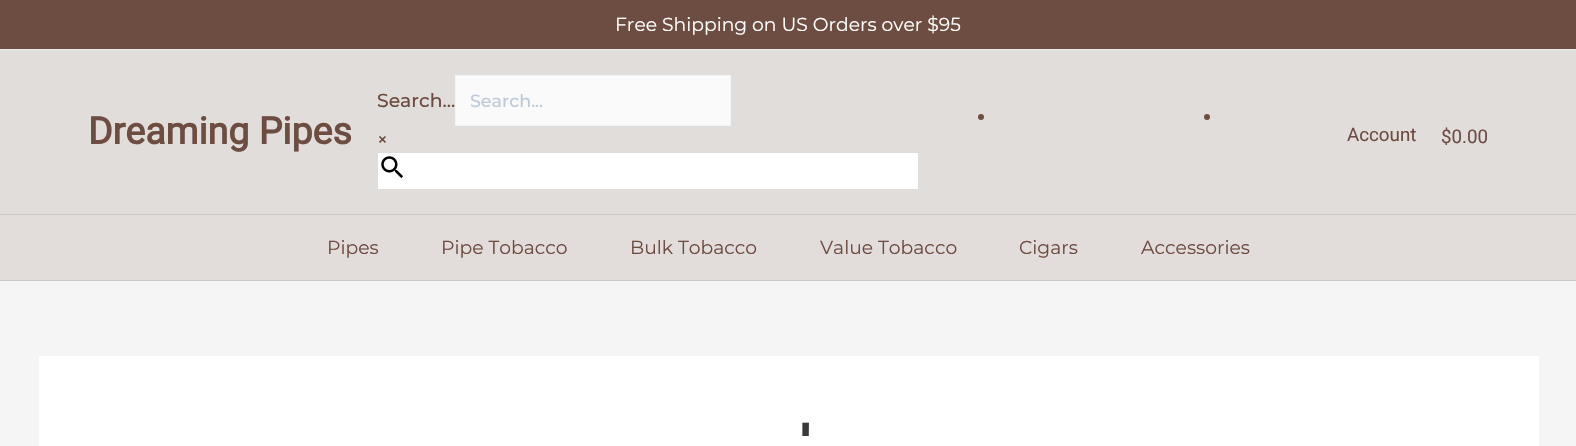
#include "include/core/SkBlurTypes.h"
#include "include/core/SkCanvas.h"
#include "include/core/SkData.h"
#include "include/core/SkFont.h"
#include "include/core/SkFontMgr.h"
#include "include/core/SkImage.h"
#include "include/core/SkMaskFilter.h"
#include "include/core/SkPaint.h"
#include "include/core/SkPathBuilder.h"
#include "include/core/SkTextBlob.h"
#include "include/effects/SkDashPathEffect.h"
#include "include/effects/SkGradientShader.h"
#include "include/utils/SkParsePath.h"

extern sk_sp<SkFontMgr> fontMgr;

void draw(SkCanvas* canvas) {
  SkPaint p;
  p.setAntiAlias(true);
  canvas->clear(SkColorSetRGB(245, 245, 245));
  p.setColor(SkColorSetRGB(109, 76, 65));
  canvas->drawRect(SkRect::MakeLTRB(0, 0, 1576, 49), p);
  p.setColor(SkColorSetRGB(235, 235, 235));
  canvas->drawRect(SkRect::MakeLTRB(0, 49, 1576, 50), p);
  p.setColor(SkColorSetRGB(225, 221, 219));
  canvas->drawRect(SkRect::MakeLTRB(0, 50, 1576, 214), p);
  p.setColor(SkColorSetRGB(250, 250, 250));
  canvas->drawRect(SkRect::MakeLTRB(455.5f, 75.5f, 730.5f, 125.5f), p);
  p.setStyle(SkPaint::kStroke_Style);
  p.setStrokeWidth(1);
  p.setColor(SkColorSetRGB(242, 245, 247));
  canvas->drawRect(SkRect::MakeLTRB(455.5f, 75.5f, 730.5f, 125.5f), p);
  p.setStyle(SkPaint::kFill_Style);
  p.setColor(SK_ColorWHITE);
  canvas->drawRect(SkRect::MakeLTRB(378, 153, 918, 189), p);
  canvas->drawImageRect(SkImages::DeferredFromEncodedData(SkData::MakeFromFileName("images/1.png")), SkRect::MakeLTRB(381, 156, 403, 178), SkSamplingOptions());
  p.setColor(SkColorSetRGB(109, 76, 65));
  canvas->drawCircle(981, 117, 3, p);
  canvas->drawCircle(1207, 117, 3, p);
  p.setColor(SkColorSetRGB(226, 221, 219));
  canvas->drawRect(SkRect::MakeLTRB(0, 215, 1576, 280), p);
  p.setColor(SkColorSetRGB(203, 199, 197));
  canvas->drawRect(SkRect::MakeLTRB(0, 214, 1576, 215), p);
  canvas->drawRect(SkRect::MakeLTRB(0, 280, 1576, 281), p);
  p.setColor(SK_ColorWHITE);
  canvas->drawRect(SkRect::MakeLTRB(39, 356, 1539, 446), p);
  SkFont font1(fontMgr->matchFamilyStyle("Montserrat", SkFontStyle::Normal()), 18.75f);
  font1.setSubpixel(true);
  canvas->drawString("Free Shipping on US Orders over $95", 615, 31, font1, p);
  SkFont font2(fontMgr->matchFamilyStyle("Roboto", SkFontStyle::Bold()), 37.5f);
  font2.setSubpixel(true);
  p.setColor(SkColorSetRGB(109, 76, 65));
  canvas->drawString("Dreaming Pipes", 88, 144, font2, p);
  SkFont font3(fontMgr->matchFamilyStyle("Montserrat", SkFontStyle(500, SkFontStyle::kNormal_Width, SkFontStyle::kUpright_Slant)), 18.75f);
  font3.setSubpixel(true);
  canvas->drawString("Search...", 377, 107, font3, p);
  SkFont font4(fontMgr->matchFamilyStyle("Montserrat", SkFontStyle(500, SkFontStyle::kNormal_Width, SkFontStyle::kUpright_Slant)), 17.5f);
  font4.setSubpixel(true);
  p.setColor(SkColorSetRGB(191, 202, 216));
  canvas->drawString("Search...", 470, 107, font4, p);
  p.setColor(SkColorSetRGB(109, 76, 65));
  canvas->drawString("×", 377, 146, font3, p);
  SkFont font5(fontMgr->matchFamilyStyle("Roboto", SkFontStyle::Normal()), 18.75f);
  font5.setSubpixel(true);
  canvas->drawString("Account", 1347, 141, font5, p);
  canvas->drawString("$0.00", 1441, 143, font5, p);
  canvas->drawString("Pipes", 327, 254, font1, p);
  canvas->drawString("Pipe Tobacco", 441, 254, font1, p);
  canvas->drawString("Bulk Tobacco", 630, 254, font1, p);
  canvas->drawString("Value Tobacco", 820, 254, font1, p);
  canvas->drawString("Cigars", 1019, 254, font1, p);
  canvas->drawString("Accessories", 1141, 254, font1, p);
  SkFont font6(fontMgr->matchFamilyStyle("Josefin Sans", SkFontStyle::Bold()), 52);
  font6.setSubpixel(true);
  p.setColor(SkColorSetRGB(58, 58, 58));
  canvas->drawString("'", 801, 461, font6, p);
}
